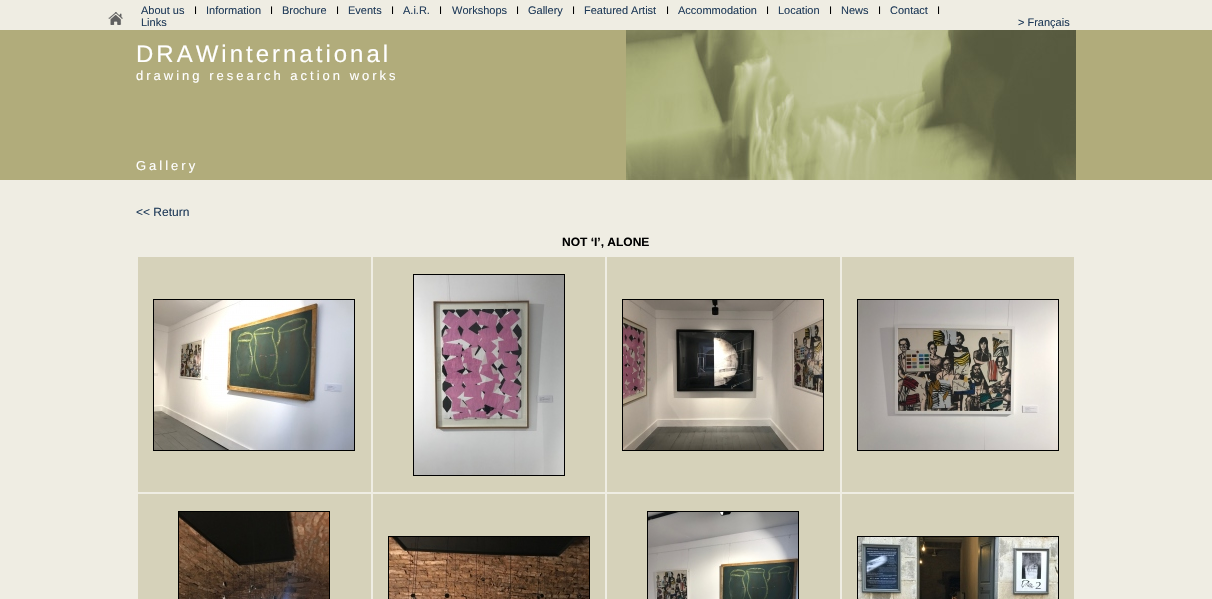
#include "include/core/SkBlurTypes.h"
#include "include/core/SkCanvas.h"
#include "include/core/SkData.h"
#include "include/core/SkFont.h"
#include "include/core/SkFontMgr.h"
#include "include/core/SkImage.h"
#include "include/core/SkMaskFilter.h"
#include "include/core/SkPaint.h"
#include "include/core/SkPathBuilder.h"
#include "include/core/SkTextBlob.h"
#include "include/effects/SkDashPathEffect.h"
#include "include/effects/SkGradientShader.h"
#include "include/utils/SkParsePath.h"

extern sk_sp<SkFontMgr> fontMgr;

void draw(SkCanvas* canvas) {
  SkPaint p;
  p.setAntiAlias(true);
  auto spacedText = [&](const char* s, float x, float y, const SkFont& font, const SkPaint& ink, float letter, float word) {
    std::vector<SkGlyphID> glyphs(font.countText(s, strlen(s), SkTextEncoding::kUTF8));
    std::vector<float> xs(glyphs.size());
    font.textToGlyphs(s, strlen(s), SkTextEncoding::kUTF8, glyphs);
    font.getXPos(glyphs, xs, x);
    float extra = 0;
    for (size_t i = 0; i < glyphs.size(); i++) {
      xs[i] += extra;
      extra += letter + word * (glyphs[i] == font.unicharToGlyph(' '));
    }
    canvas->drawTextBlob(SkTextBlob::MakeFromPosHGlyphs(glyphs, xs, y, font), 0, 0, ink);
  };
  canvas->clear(SkColorSetRGB(239, 237, 227));
  canvas->drawImageRect(SkImages::DeferredFromEncodedData(SkData::MakeFromFileName("images/1.png")), SkRect::MakeLTRB(108, 12, 123, 25), SkSamplingOptions());
  p.setColor(SkColorSetRGB(177, 172, 123));
  canvas->drawRect(SkRect::MakeLTRB(0, 30, 1212, 180), p);
  canvas->drawImageRect(SkImages::DeferredFromEncodedData(SkData::MakeFromFileName("images/2.png")), SkRect::MakeLTRB(626, 30, 1076, 180), SkSamplingOptions());
  p.setColor(SkColorSetRGB(214, 210, 186));
  canvas->drawRect(SkRect::MakeLTRB(138, 257, 371, 492), p);
  p.setStyle(SkPaint::kStroke_Style);
  p.setStrokeWidth(1);
  p.setColor(SK_ColorBLACK);
  canvas->drawRect(SkRect::MakeLTRB(153.5f, 299.5f, 354.5f, 450.5f), p);
  canvas->drawImageRect(SkImages::DeferredFromEncodedData(SkData::MakeFromFileName("images/3.png")), SkRect::MakeLTRB(154, 300, 354, 450), SkSamplingOptions());
  p.setStyle(SkPaint::kFill_Style);
  p.setColor(SkColorSetRGB(214, 210, 186));
  canvas->drawRect(SkRect::MakeLTRB(373, 257, 605, 492), p);
  p.setStyle(SkPaint::kStroke_Style);
  p.setColor(SK_ColorBLACK);
  canvas->drawRect(SkRect::MakeLTRB(413.5f, 274.5f, 564.5f, 475.5f), p);
  canvas->drawImageRect(SkImages::DeferredFromEncodedData(SkData::MakeFromFileName("images/4.png")), SkRect::MakeLTRB(414, 275, 564, 475), SkSamplingOptions());
  p.setStyle(SkPaint::kFill_Style);
  p.setColor(SkColorSetRGB(214, 210, 186));
  canvas->drawRect(SkRect::MakeLTRB(607, 257, 840, 492), p);
  p.setStyle(SkPaint::kStroke_Style);
  p.setColor(SK_ColorBLACK);
  canvas->drawRect(SkRect::MakeLTRB(622.5f, 299.5f, 823.5f, 450.5f), p);
  canvas->drawImageRect(SkImages::DeferredFromEncodedData(SkData::MakeFromFileName("images/5.png")), SkRect::MakeLTRB(623, 300, 823, 450), SkSamplingOptions());
  p.setStyle(SkPaint::kFill_Style);
  p.setColor(SkColorSetRGB(214, 210, 186));
  canvas->drawRect(SkRect::MakeLTRB(842, 257, 1074, 492), p);
  p.setStyle(SkPaint::kStroke_Style);
  p.setColor(SK_ColorBLACK);
  canvas->drawRect(SkRect::MakeLTRB(857.5f, 299.5f, 1058.5f, 450.5f), p);
  canvas->drawImageRect(SkImages::DeferredFromEncodedData(SkData::MakeFromFileName("images/6.png")), SkRect::MakeLTRB(858, 300, 1058, 450), SkSamplingOptions());
  p.setStyle(SkPaint::kFill_Style);
  p.setColor(SkColorSetRGB(214, 210, 186));
  canvas->drawRect(SkRect::MakeLTRB(138, 494, 371, 599), p);
  p.setStyle(SkPaint::kStroke_Style);
  p.setColor(SK_ColorBLACK);
  canvas->drawRect(SkRect::MakeLTRB(178.5f, 511.5f, 329.5f, 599.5f), p);
  canvas->drawImageRect(SkImages::DeferredFromEncodedData(SkData::MakeFromFileName("images/7.png")), SkRect::MakeLTRB(179, 512, 329, 599), SkSamplingOptions());
  p.setStyle(SkPaint::kFill_Style);
  p.setColor(SkColorSetRGB(214, 210, 186));
  canvas->drawRect(SkRect::MakeLTRB(373, 494, 605, 599), p);
  p.setStyle(SkPaint::kStroke_Style);
  p.setColor(SK_ColorBLACK);
  canvas->drawRect(SkRect::MakeLTRB(388.5f, 536.5f, 589.5f, 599.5f), p);
  canvas->drawImageRect(SkImages::DeferredFromEncodedData(SkData::MakeFromFileName("images/8.png")), SkRect::MakeLTRB(389, 537, 589, 599), SkSamplingOptions());
  p.setStyle(SkPaint::kFill_Style);
  p.setColor(SkColorSetRGB(214, 210, 186));
  canvas->drawRect(SkRect::MakeLTRB(607, 494, 840, 599), p);
  p.setStyle(SkPaint::kStroke_Style);
  p.setColor(SK_ColorBLACK);
  canvas->drawRect(SkRect::MakeLTRB(647.5f, 511.5f, 798.5f, 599.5f), p);
  canvas->drawImageRect(SkImages::DeferredFromEncodedData(SkData::MakeFromFileName("images/9.png")), SkRect::MakeLTRB(648, 512, 798, 599), SkSamplingOptions());
  p.setStyle(SkPaint::kFill_Style);
  p.setColor(SkColorSetRGB(214, 210, 186));
  canvas->drawRect(SkRect::MakeLTRB(842, 494, 1074, 599), p);
  p.setStyle(SkPaint::kStroke_Style);
  p.setColor(SK_ColorBLACK);
  canvas->drawRect(SkRect::MakeLTRB(857.5f, 536.5f, 1058.5f, 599.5f), p);
  canvas->drawImageRect(SkImages::DeferredFromEncodedData(SkData::MakeFromFileName("images/10.png")), SkRect::MakeLTRB(858, 537, 1058, 599), SkSamplingOptions());
  SkFont font1(fontMgr->matchFamilyStyle("Liberation Sans", SkFontStyle::Normal()), 11);
  font1.setSubpixel(true);
  p.setStyle(SkPaint::kFill_Style);
  p.setColor(SkColorSetRGB(33, 60, 90));
  canvas->drawString("About us", 141, 14, font1, p);
  p.setColor(SK_ColorBLACK);
  canvas->drawString("I", 194, 14, font1, p);
  p.setColor(SkColorSetRGB(33, 60, 90));
  canvas->drawString("Information", 206, 14, font1, p);
  p.setColor(SK_ColorBLACK);
  canvas->drawString("I", 270, 14, font1, p);
  p.setColor(SkColorSetRGB(33, 60, 90));
  canvas->drawString("Brochure", 282, 14, font1, p);
  p.setColor(SK_ColorBLACK);
  canvas->drawString("I", 336, 14, font1, p);
  p.setColor(SkColorSetRGB(33, 60, 90));
  canvas->drawString("Events", 348, 14, font1, p);
  p.setColor(SK_ColorBLACK);
  canvas->drawString("I", 391, 14, font1, p);
  p.setColor(SkColorSetRGB(33, 60, 90));
  canvas->drawString("A.i.R.", 403, 14, font1, p);
  p.setColor(SK_ColorBLACK);
  canvas->drawString("I", 439, 14, font1, p);
  p.setColor(SkColorSetRGB(33, 60, 90));
  canvas->drawString("Workshops", 452, 14, font1, p);
  p.setColor(SK_ColorBLACK);
  canvas->drawString("I", 516, 14, font1, p);
  p.setColor(SkColorSetRGB(33, 60, 90));
  canvas->drawString("Gallery", 528, 14, font1, p);
  p.setColor(SK_ColorBLACK);
  canvas->drawString("I", 572, 14, font1, p);
  p.setColor(SkColorSetRGB(33, 60, 90));
  canvas->drawString("Featured Artist", 584, 14, font1, p);
  p.setColor(SK_ColorBLACK);
  canvas->drawString("I", 666, 14, font1, p);
  p.setColor(SkColorSetRGB(33, 60, 90));
  canvas->drawString("Accommodation", 678, 14, font1, p);
  p.setColor(SK_ColorBLACK);
  canvas->drawString("I", 766, 14, font1, p);
  p.setColor(SkColorSetRGB(33, 60, 90));
  canvas->drawString("Location", 778, 14, font1, p);
  p.setColor(SK_ColorBLACK);
  canvas->drawString("I", 829, 14, font1, p);
  p.setColor(SkColorSetRGB(33, 60, 90));
  canvas->drawString("News", 841, 14, font1, p);
  p.setColor(SK_ColorBLACK);
  canvas->drawString("I", 878, 14, font1, p);
  p.setColor(SkColorSetRGB(33, 60, 90));
  canvas->drawString("Contact", 890, 14, font1, p);
  p.setColor(SK_ColorBLACK);
  canvas->drawString("I", 937, 14, font1, p);
  p.setColor(SkColorSetRGB(33, 60, 90));
  canvas->drawString("Links", 141, 26, font1, p);
  canvas->drawString("> Français", 1018, 26, font1, p);
  SkFont font2(fontMgr->matchFamilyStyle("Liberation Sans", SkFontStyle::Normal()), 24);
  font2.setSubpixel(true);
  p.setColor(SK_ColorWHITE);
  spacedText("DRAWinternational", 136, 62, font2, p, 3, 0);
  SkFont font3(fontMgr->matchFamilyStyle("Liberation Sans", SkFontStyle::Normal()), 13);
  font3.setSubpixel(true);
  spacedText("drawing research action works", 136, 80, font3, p, 3, 0);
  spacedText("Gallery", 136, 170, font3, p, 3, 0);
  SkFont font4(fontMgr->matchFamilyStyle("Liberation Sans", SkFontStyle::Normal()), 12);
  font4.setSubpixel(true);
  p.setColor(SkColorSetRGB(33, 60, 90));
  canvas->drawString("<< Return", 136, 216, font4, p);
  SkFont font5(fontMgr->matchFamilyStyle("Liberation Sans", SkFontStyle::Bold()), 12);
  font5.setSubpixel(true);
  p.setColor(SK_ColorBLACK);
  canvas->drawString("NOT ‘I’, ALONE", 562, 246, font5, p);
}
